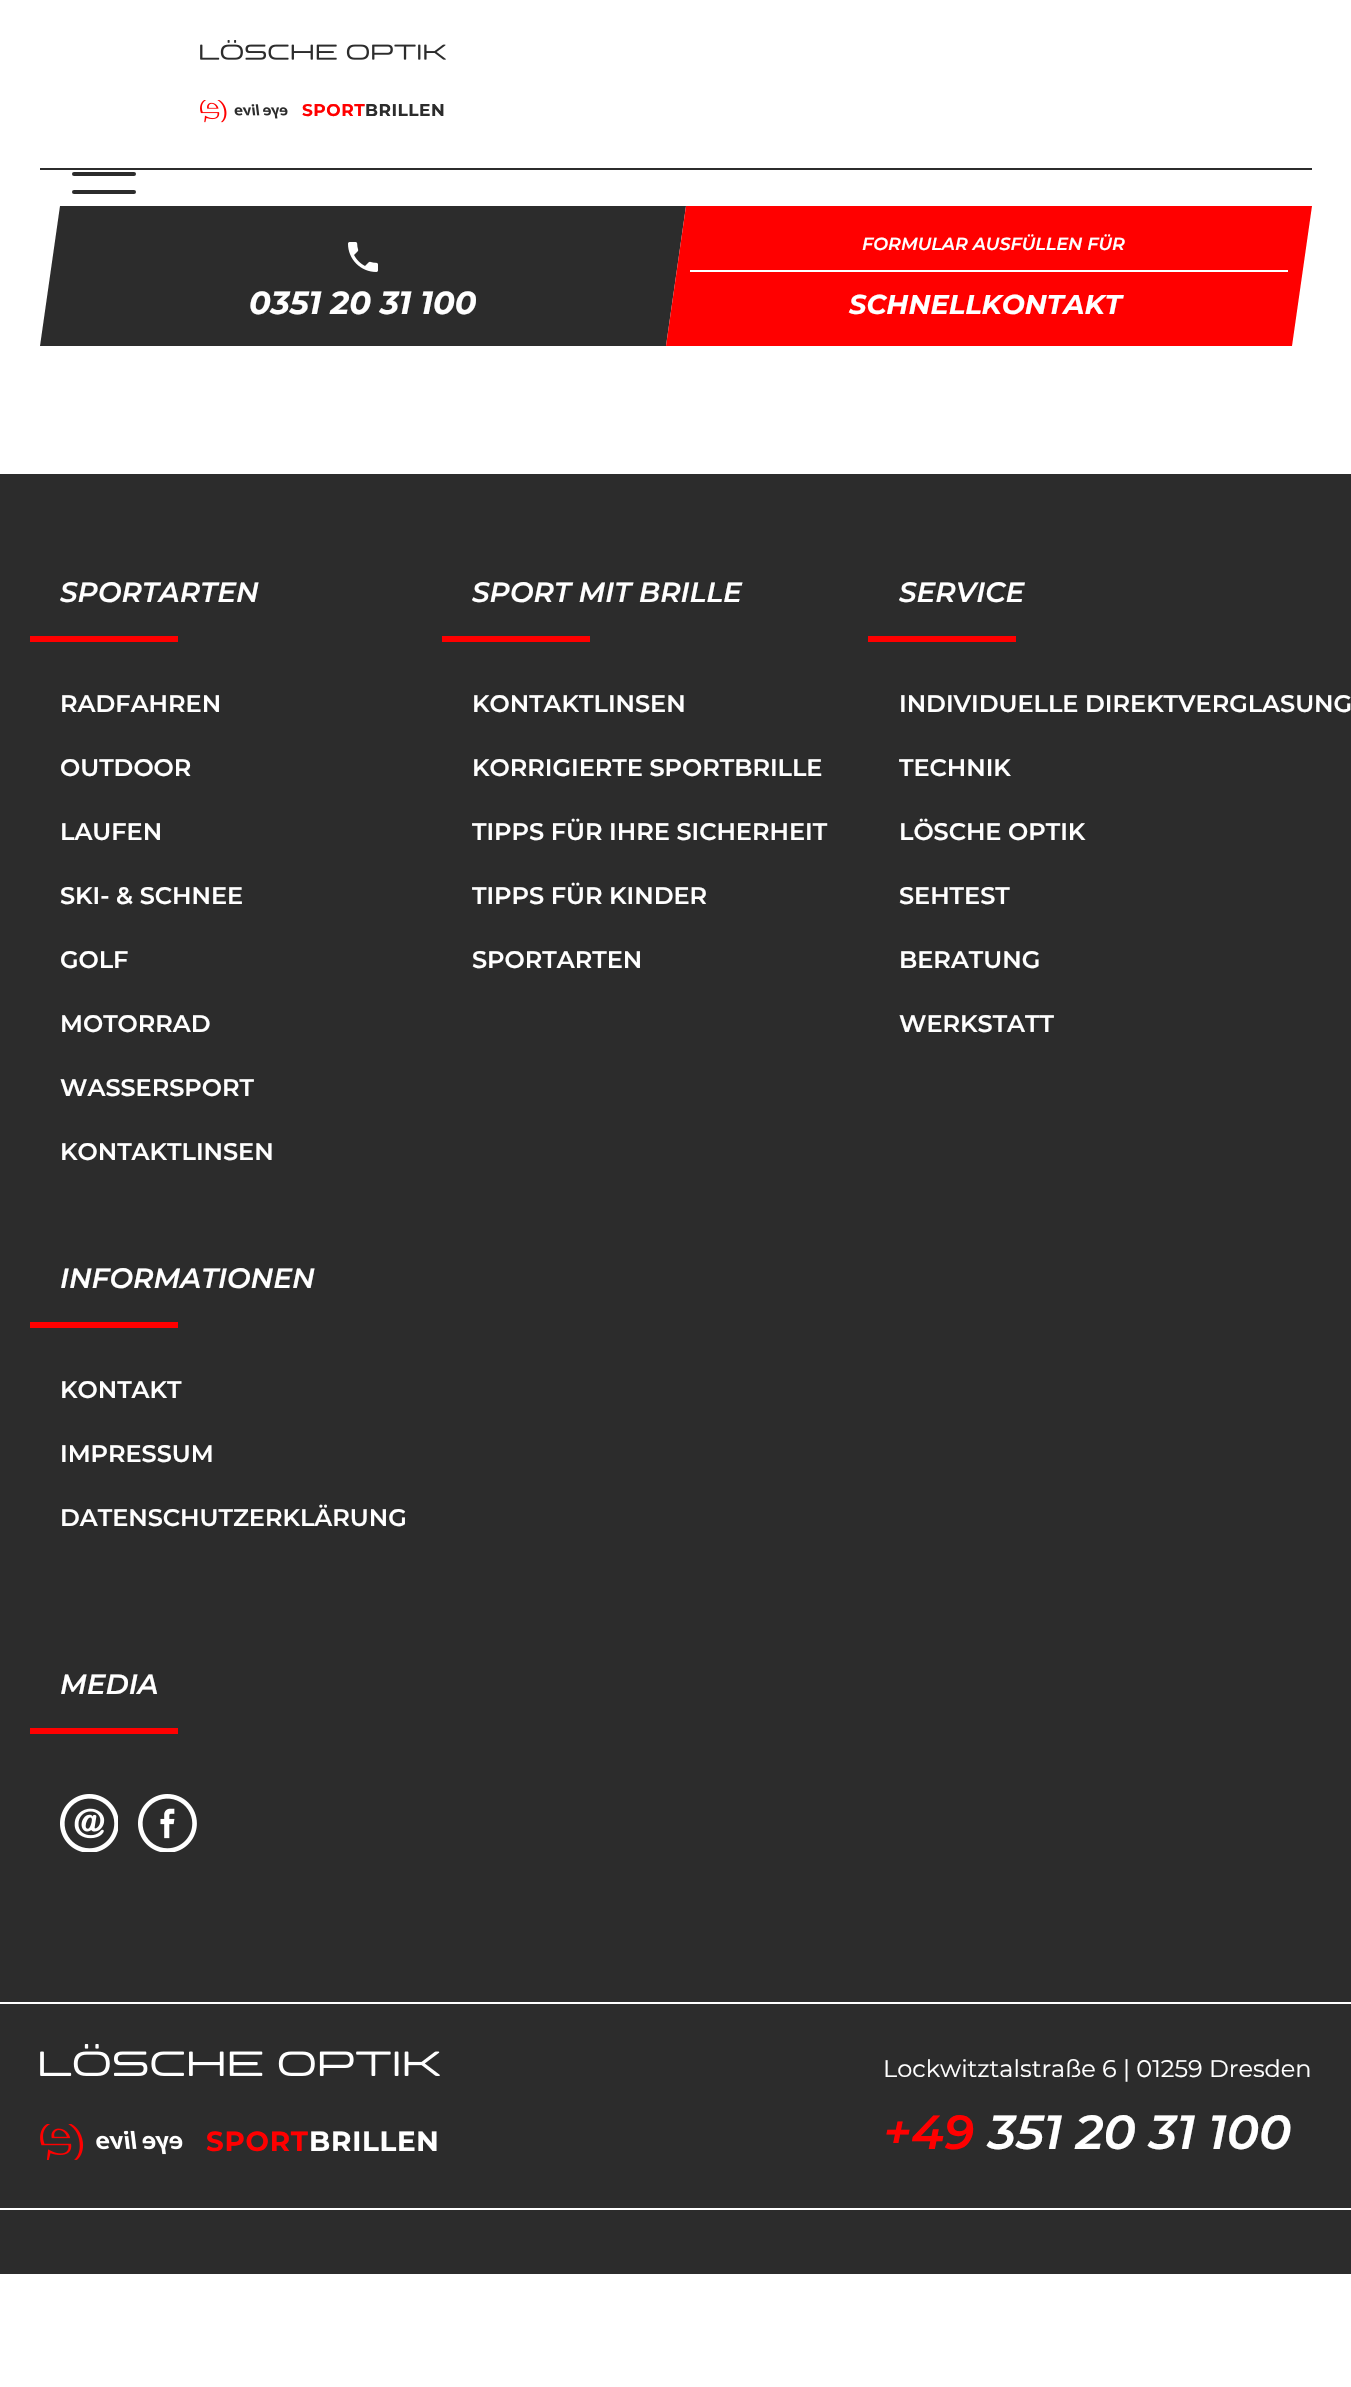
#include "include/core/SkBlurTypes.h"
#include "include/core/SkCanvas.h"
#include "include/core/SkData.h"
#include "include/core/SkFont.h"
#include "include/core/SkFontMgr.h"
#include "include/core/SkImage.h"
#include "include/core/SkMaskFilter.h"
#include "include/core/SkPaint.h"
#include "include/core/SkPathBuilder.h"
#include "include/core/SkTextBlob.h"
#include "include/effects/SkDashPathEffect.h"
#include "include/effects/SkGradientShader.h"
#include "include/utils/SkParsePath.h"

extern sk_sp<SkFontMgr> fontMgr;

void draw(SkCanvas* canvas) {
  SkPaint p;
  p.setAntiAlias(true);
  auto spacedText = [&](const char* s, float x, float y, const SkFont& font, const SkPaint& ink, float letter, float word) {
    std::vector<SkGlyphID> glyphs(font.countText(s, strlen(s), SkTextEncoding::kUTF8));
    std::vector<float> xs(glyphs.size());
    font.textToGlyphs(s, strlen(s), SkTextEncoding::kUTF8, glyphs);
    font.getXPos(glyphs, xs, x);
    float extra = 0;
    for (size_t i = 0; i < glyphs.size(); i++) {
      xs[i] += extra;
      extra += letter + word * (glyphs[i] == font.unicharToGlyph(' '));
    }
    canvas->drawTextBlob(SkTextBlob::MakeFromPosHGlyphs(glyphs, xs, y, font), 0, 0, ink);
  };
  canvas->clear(SK_ColorWHITE);
  canvas->drawImageRect(SkImages::DeferredFromEncodedData(SkData::MakeFromFileName("images/1.png")), SkRect::MakeLTRB(200, 40, 446, 60), SkSamplingOptions());
  canvas->drawImageRect(SkImages::DeferredFromEncodedData(SkData::MakeFromFileName("images/2.png")), SkRect::MakeLTRB(200, 100, 288, 123), SkSamplingOptions());
  p.setColor(SkColorSetRGB(44, 44, 44));
  canvas->drawRoundRect(SkRect::MakeLTRB(72, 172, 136, 176), 2, 2, p);
  canvas->drawRoundRect(SkRect::MakeLTRB(72, 190, 136, 194), 2, 2, p);
  canvas->drawRect(SkRect::MakeLTRB(40, 168, 1312, 170), p);
  canvas->drawPath(SkPathBuilder().moveTo(686, 206).lineTo(666, 346).lineTo(40, 346).lineTo(60, 206).close().detach(), p);
  canvas->drawImageRect(SkImages::DeferredFromEncodedData(SkData::MakeFromFileName("images/3.png")), SkRect::MakeLTRB(348, 242, 378, 272), SkSamplingOptions());
  p.setColor(SkColorSetRGB(255, 0, 0));
  canvas->drawPath(SkPathBuilder().moveTo(1312, 206).lineTo(1292, 346).lineTo(666, 346).lineTo(686, 206).close().detach(), p);
  p.setColor(SK_ColorWHITE);
  canvas->drawRect(SkRect::MakeLTRB(690, 270, 1288, 272), p);
  p.setColor(SkColorSetRGB(44, 44, 44));
  canvas->drawRect(SkRect::MakeLTRB(0, 474, 1351, 2274), p);
  p.setColor(SkColorSetRGB(255, 0, 0));
  canvas->drawRect(SkRect::MakeLTRB(30, 636, 178, 642), p);
  canvas->drawRect(SkRect::MakeLTRB(442, 636, 590, 642), p);
  canvas->drawRect(SkRect::MakeLTRB(868, 636, 1016, 642), p);
  canvas->drawRect(SkRect::MakeLTRB(30, 1322, 178, 1328), p);
  canvas->drawRect(SkRect::MakeLTRB(30, 1728, 178, 1734), p);
  canvas->drawImageRect(SkImages::DeferredFromEncodedData(SkData::MakeFromFileName("images/4.png")), SkRect::MakeLTRB(60, 1794, 118, 1852), SkSamplingOptions());
  canvas->drawImageRect(SkImages::DeferredFromEncodedData(SkData::MakeFromFileName("images/5.png")), SkRect::MakeLTRB(138, 1794, 197, 1852), SkSamplingOptions());
  p.setColor(SK_ColorWHITE);
  canvas->drawRect(SkRect::MakeLTRB(0, 2002, 1351, 2004), p);
  canvas->drawRect(SkRect::MakeLTRB(0, 2208, 1351, 2210), p);
  canvas->drawImageRect(SkImages::DeferredFromEncodedData(SkData::MakeFromFileName("images/6.png")), SkRect::MakeLTRB(40, 2044, 440, 2076), SkSamplingOptions());
  canvas->drawImageRect(SkImages::DeferredFromEncodedData(SkData::MakeFromFileName("images/7.png")), SkRect::MakeLTRB(40, 2124, 183, 2160), SkSamplingOptions());
  SkFont font1(fontMgr->matchFamilyStyle("Montserrat", SkFontStyle::Bold()), 17);
  font1.setSubpixel(true);
  p.setColor(SkColorSetRGB(255, 0, 0));
  spacedText("SPORT", 302, 116, font1, p, 0.5f, 0);
  p.setColor(SkColorSetRGB(44, 44, 44));
  spacedText("BRILLEN", 365, 116, font1, p, 0.5f, 0);
  SkFont font2(fontMgr->matchFamilyStyle("Montserrat", SkFontStyle::BoldItalic()), 32);
  font2.setSubpixel(true);
  p.setColor(SK_ColorWHITE);
  canvas->drawString("0351 20 31 100", 249, 314, font2, p);
  SkFont font3(fontMgr->matchFamilyStyle("Montserrat", SkFontStyle(600, SkFontStyle::kNormal_Width, SkFontStyle::kItalic_Slant)), 17.6f);
  font3.setSubpixel(true);
  canvas->drawString("FORMULAR AUSFÜLLEN FÜR", 862, 250, font3, p);
  SkFont font4(fontMgr->matchFamilyStyle("Montserrat", SkFontStyle::BoldItalic()), 27.25f);
  font4.setSubpixel(true);
  canvas->drawString("SCHNELLKONTAKT", 849, 314, font4, p);
  SkFont font5(fontMgr->matchFamilyStyle("Montserrat", SkFontStyle(600, SkFontStyle::kNormal_Width, SkFontStyle::kItalic_Slant)), 28);
  font5.setSubpixel(true);
  canvas->drawString("SPORTARTEN", 60, 602, font5, p);
  SkFont font6(fontMgr->matchFamilyStyle("Montserrat", SkFontStyle(600, SkFontStyle::kNormal_Width, SkFontStyle::kUpright_Slant)), 24);
  font6.setSubpixel(true);
  canvas->drawString("RADFAHREN", 60, 712, font6, p);
  canvas->drawString("OUTDOOR", 60, 776, font6, p);
  canvas->drawString("LAUFEN", 60, 840, font6, p);
  canvas->drawString("SKI- & SCHNEE", 60, 904, font6, p);
  canvas->drawString("GOLF", 60, 968, font6, p);
  canvas->drawString("MOTORRAD", 60, 1032, font6, p);
  canvas->drawString("WASSERSPORT", 60, 1096, font6, p);
  canvas->drawString("KONTAKTLINSEN", 60, 1160, font6, p);
  canvas->drawString("SPORT MIT BRILLE", 472, 602, font5, p);
  canvas->drawString("KONTAKTLINSEN", 472, 712, font6, p);
  canvas->drawString("KORRIGIERTE SPORTBRILLE", 472, 776, font6, p);
  canvas->drawString("TIPPS FÜR IHRE SICHERHEIT", 472, 840, font6, p);
  canvas->drawString("TIPPS FÜR KINDER", 472, 904, font6, p);
  canvas->drawString("SPORTARTEN", 472, 968, font6, p);
  canvas->drawString("SERVICE", 899, 602, font5, p);
  canvas->drawString("INDIVIDUELLE DIREKTVERGLASUNG", 899, 712, font6, p);
  canvas->drawString("TECHNIK", 899, 776, font6, p);
  canvas->drawString("LÖSCHE OPTIK", 899, 840, font6, p);
  canvas->drawString("SEHTEST", 899, 904, font6, p);
  canvas->drawString("BERATUNG", 899, 968, font6, p);
  canvas->drawString("WERKSTATT", 899, 1032, font6, p);
  canvas->drawString("INFORMATIONEN", 60, 1288, font5, p);
  canvas->drawString("KONTAKT", 60, 1398, font6, p);
  canvas->drawString("IMPRESSUM", 60, 1462, font6, p);
  canvas->drawString("DATENSCHUTZERKLÄRUNG", 60, 1526, font6, p);
  canvas->drawString("MEDIA", 60, 1694, font5, p);
  SkFont font7(fontMgr->matchFamilyStyle("Montserrat", SkFontStyle::Bold()), 27.75f);
  font7.setSubpixel(true);
  p.setColor(SkColorSetRGB(255, 0, 0));
  spacedText("SPORT", 206, 2151, font7, p, 0.75f, 0);
  p.setColor(SK_ColorWHITE);
  spacedText("BRILLEN", 309, 2151, font7, p, 0.75f, 0);
  SkFont font8(fontMgr->matchFamilyStyle("Montserrat", SkFontStyle::Normal()), 24);
  font8.setSubpixel(true);
  canvas->drawString("Lockwitztalstraße 6 | 01259 Dresden", 883, 2077, font8, p);
  SkFont font9(fontMgr->matchFamilyStyle("Montserrat", SkFontStyle(600, SkFontStyle::kNormal_Width, SkFontStyle::kItalic_Slant)), 48);
  font9.setSubpixel(true);
  p.setColor(SkColorSetRGB(255, 0, 0));
  canvas->drawString("+49", 883, 2149, font9, p);
  p.setColor(SK_ColorWHITE);
  canvas->drawString("351 20 31 100", 988, 2149, font9, p);
}
